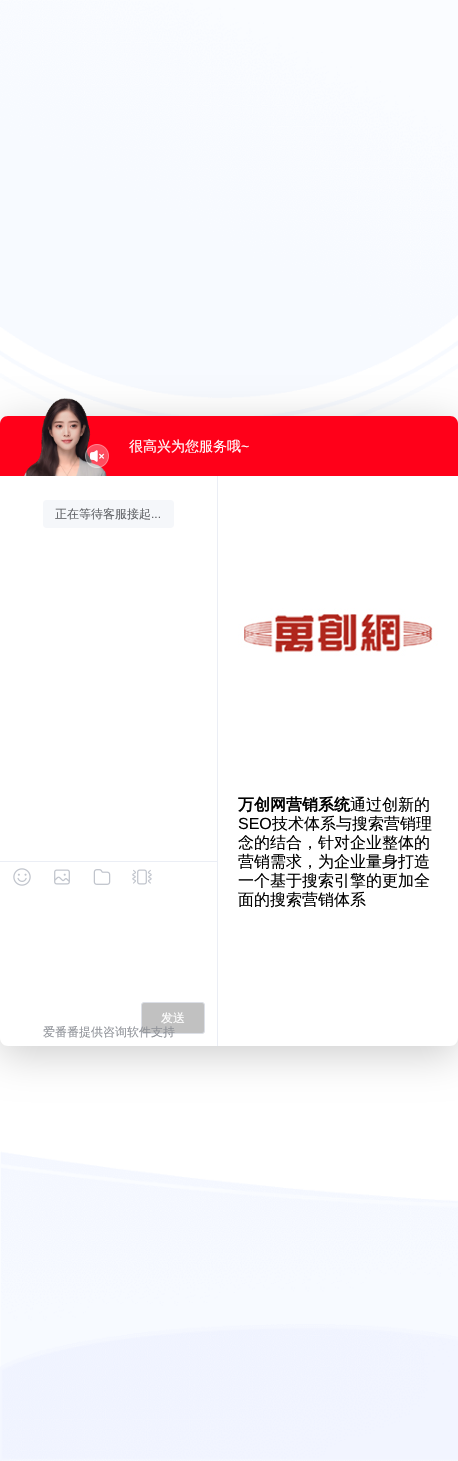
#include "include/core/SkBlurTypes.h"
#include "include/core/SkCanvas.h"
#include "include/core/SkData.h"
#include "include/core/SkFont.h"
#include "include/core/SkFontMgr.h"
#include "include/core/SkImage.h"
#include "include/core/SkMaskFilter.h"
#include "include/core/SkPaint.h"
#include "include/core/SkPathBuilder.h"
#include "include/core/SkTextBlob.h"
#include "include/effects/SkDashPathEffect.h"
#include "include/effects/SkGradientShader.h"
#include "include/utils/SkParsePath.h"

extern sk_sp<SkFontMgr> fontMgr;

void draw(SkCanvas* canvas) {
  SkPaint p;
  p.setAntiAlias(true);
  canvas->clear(SK_ColorWHITE);
  canvas->drawImageRect(SkImages::DeferredFromEncodedData(SkData::MakeFromFileName("images/1.png")), SkRect::MakeLTRB(0, 0, 458, 1461), SkSamplingOptions());
  p.setColor(SkColorSetARGB(51, 0, 0, 0));
  p.setMaskFilter(SkMaskFilter::MakeBlur(kNormal_SkBlurStyle, 20));
  canvas->drawRoundRect(SkRect::MakeLTRB(0, 424, 458, 1054), 8, 8, p);
  p.setMaskFilter(nullptr);
  p.setColor(SkColorSetRGB(255, 0, 25));
  canvas->drawPath(SkPathBuilder().moveTo(8, 416).lineTo(450, 416).cubicTo(454.5f, 416, 458, 419.5f, 458, 424).lineTo(458, 476).lineTo(0, 476).lineTo(0, 424).cubicTo(0, 419.5f, 3.5f, 416, 8, 416).close().detach(), p);
  canvas->drawImageRect(SkImages::DeferredFromEncodedData(SkData::MakeFromFileName("images/2.png")), SkRect::MakeLTRB(24, 398, 107, 476), SkSamplingOptions());
  canvas->drawImageRect(SkImages::DeferredFromEncodedData(SkData::MakeFromFileName("images/3.png")), SkRect::MakeLTRB(85, 444, 109, 468), SkSamplingOptions());
  p.setColor(SK_ColorWHITE);
  canvas->drawPath(SkPathBuilder().moveTo(0, 476).lineTo(217, 476).lineTo(217, 1046).lineTo(8, 1046).cubicTo(3.5f, 1046, 0, 1042.5f, 0, 1038).close().detach(), p);
  p.setColor(SkColorSetRGB(245, 247, 250));
  canvas->drawRoundRect(SkRect::MakeLTRB(43, 500, 174, 528), 4, 4, p);
  p.setColor(SkColorSetRGB(235, 238, 245));
  canvas->drawRect(SkRect::MakeLTRB(0, 861, 217, 862), p);
  canvas->drawImageRect(SkImages::DeferredFromEncodedData(SkData::MakeFromFileName("images/4.png")), SkRect::MakeLTRB(13, 868, 31, 886), SkSamplingOptions());
  canvas->drawImageRect(SkImages::DeferredFromEncodedData(SkData::MakeFromFileName("images/5.png")), SkRect::MakeLTRB(54, 869, 70, 885), SkSamplingOptions());
  canvas->drawImageRect(SkImages::DeferredFromEncodedData(SkData::MakeFromFileName("images/6.png")), SkRect::MakeLTRB(93, 869, 111, 885), SkSamplingOptions());
  canvas->drawImageRect(SkImages::DeferredFromEncodedData(SkData::MakeFromFileName("images/7.png")), SkRect::MakeLTRB(132, 869, 152, 885), SkSamplingOptions());
  p.setColor(SkColorSetRGB(193, 193, 193));
  canvas->drawRoundRect(SkRect::MakeLTRB(141.5f, 1002.5f, 204.5f, 1033.5f), 2.5f, 2.5f, p);
  p.setStyle(SkPaint::kStroke_Style);
  p.setStrokeWidth(1);
  p.setColor(SkColorSetRGB(220, 223, 230));
  canvas->drawRoundRect(SkRect::MakeLTRB(141.5f, 1002.5f, 204.5f, 1033.5f), 2.5f, 2.5f, p);
  p.setStyle(SkPaint::kFill_Style);
  p.setColor(SK_ColorWHITE);
  canvas->drawPath(SkPathBuilder().moveTo(217, 476).lineTo(458, 476).lineTo(458, 1038).cubicTo(458, 1042.5f, 454.5f, 1046, 450, 1046).lineTo(217, 1046).close().detach(), p);
  p.setColor(SkColorSetRGB(235, 238, 245));
  canvas->drawRect(SkRect::MakeLTRB(217, 476, 218, 1046), p);
  canvas->drawImageRect(SkImages::DeferredFromEncodedData(SkData::MakeFromFileName("images/8.png")), SkRect::MakeLTRB(238, 496, 438, 776), SkSamplingOptions());
  SkFont font1(fontMgr->matchFamilyStyle("WenQuanYi Zen Hei", SkFontStyle(500, SkFontStyle::kNormal_Width, SkFontStyle::kUpright_Slant)), 14);
  font1.setSubpixel(true);
  p.setColor(SK_ColorWHITE);
  canvas->drawString("很高兴为您服务哦", 129, 451, font1, p);
  SkFont font2(fontMgr->matchFamilyStyle("Liberation Sans", SkFontStyle::Normal()), 14);
  font2.setSubpixel(true);
  canvas->drawString("~", 241, 451, font2, p);
  SkFont font3(fontMgr->matchFamilyStyle("WenQuanYi Zen Hei", SkFontStyle(500, SkFontStyle::kNormal_Width, SkFontStyle::kUpright_Slant)), 12);
  font3.setSubpixel(true);
  p.setColor(SkColorSetRGB(96, 98, 102));
  canvas->drawString("正在等待客服接起", 55, 518, font3, p);
  SkFont font4(fontMgr->matchFamilyStyle("Liberation Sans", SkFontStyle::Normal()), 12);
  font4.setSubpixel(true);
  canvas->drawString("...", 151, 518, font4, p);
  p.setColor(SK_ColorWHITE);
  canvas->drawString("发送", 161, 1022, font3, p);
  p.setColor(SkColorSetRGB(144, 147, 153));
  canvas->drawString("爱番番提供咨询软件支持", 43, 1036, font3, p);
  SkFont font5(fontMgr->matchFamilyStyle("WenQuanYi Zen Hei", SkFontStyle::Bold()), 16);
  font5.setSubpixel(true);
  p.setColor(SK_ColorBLACK);
  canvas->drawString("万创网营销系统", 238, 810, font5, p);
  SkFont font6(fontMgr->matchFamilyStyle("WenQuanYi Zen Hei", SkFontStyle(500, SkFontStyle::kNormal_Width, SkFontStyle::kUpright_Slant)), 16);
  font6.setSubpixel(true);
  canvas->drawString("通过创新的", 350, 810, font6, p);
  SkFont font7(fontMgr->matchFamilyStyle("Liberation Sans", SkFontStyle::Normal()), 16);
  font7.setSubpixel(true);
  canvas->drawString("SEO", 238, 829, font7, p);
  canvas->drawString("技术体系与搜索营销理", 272, 829, font6, p);
  canvas->drawString("念的结合，针对企业整体的", 238, 848, font6, p);
  canvas->drawString("营销需求，为企业量身打造", 238, 867, font6, p);
  canvas->drawString("一个基于搜索引擎的更加全", 238, 886, font6, p);
  canvas->drawString("面的搜索营销体系", 238, 905, font6, p);
}
